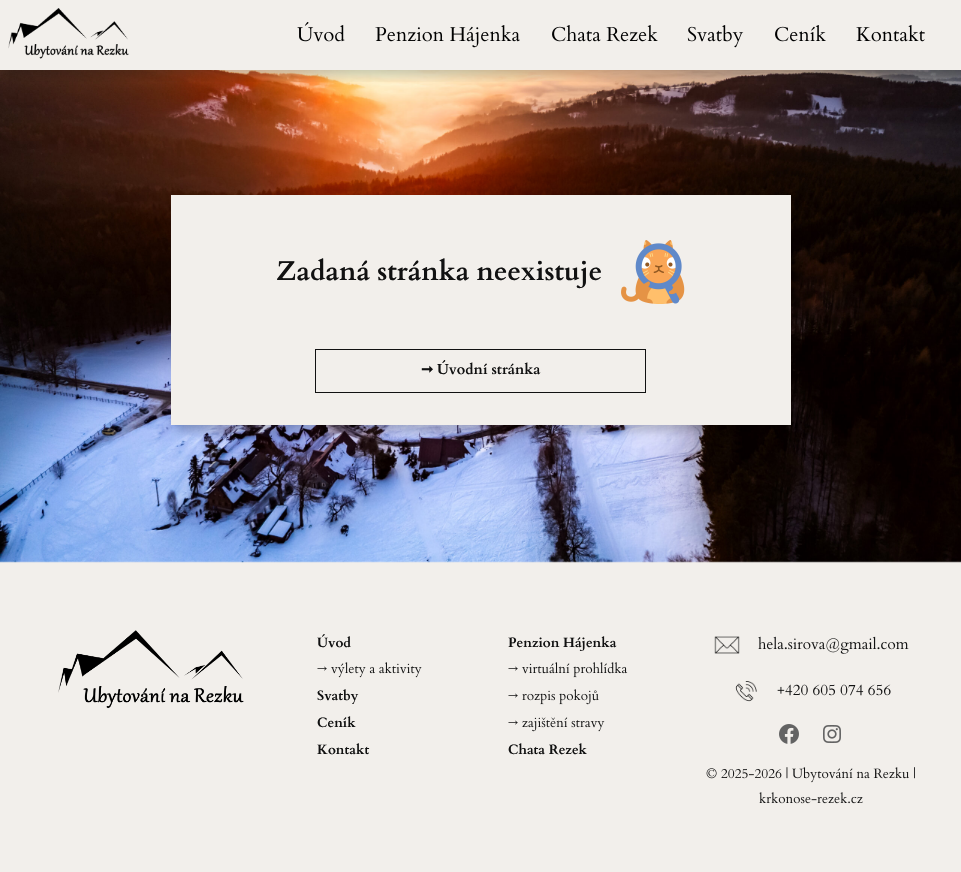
#include "include/core/SkBlurTypes.h"
#include "include/core/SkCanvas.h"
#include "include/core/SkData.h"
#include "include/core/SkFont.h"
#include "include/core/SkFontMgr.h"
#include "include/core/SkImage.h"
#include "include/core/SkMaskFilter.h"
#include "include/core/SkPaint.h"
#include "include/core/SkPathBuilder.h"
#include "include/core/SkTextBlob.h"
#include "include/effects/SkDashPathEffect.h"
#include "include/effects/SkGradientShader.h"
#include "include/utils/SkParsePath.h"

extern sk_sp<SkFontMgr> fontMgr;

void draw(SkCanvas* canvas) {
  SkPaint p;
  p.setAntiAlias(true);
  canvas->clear(SkColorSetRGB(242, 239, 235));
  canvas->drawImageRect(SkImages::DeferredFromEncodedData(SkData::MakeFromFileName("images/8.png")), SkRect::MakeLTRB(0, 70, 961, 563), SkSamplingOptions());
  canvas->save();
  canvas->clipRect(SkRect::MakeLTRB(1, 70, 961, 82));
  p.setColor(SkColorSetARGB(51, 0, 0, 0));
  p.setMaskFilter(SkMaskFilter::MakeBlur(kNormal_SkBlurStyle, 4.5f));
  canvas->drawRect(SkRect::MakeLTRB(6, 6, 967, 76), p);
  p.setMaskFilter(nullptr);
  canvas->restore();
  canvas->drawImageRect(SkImages::DeferredFromEncodedData(SkData::MakeFromFileName("images/1.png")), SkRect::MakeLTRB(8, 8, 129, 59), SkSamplingOptions());
  canvas->drawImageRect(SkImages::DeferredFromEncodedData(SkData::MakeFromFileName("images/2.png")), SkRect::MakeLTRB(297, 22, 345, 42), SkSamplingOptions());
  canvas->drawImageRect(SkImages::DeferredFromEncodedData(SkData::MakeFromFileName("images/3.png")), SkRect::MakeLTRB(375, 25, 520, 48), SkSamplingOptions());
  canvas->drawImageRect(SkImages::DeferredFromEncodedData(SkData::MakeFromFileName("images/4.png")), SkRect::MakeLTRB(552, 25, 658, 42), SkSamplingOptions());
  canvas->drawImageRect(SkImages::DeferredFromEncodedData(SkData::MakeFromFileName("images/5.png")), SkRect::MakeLTRB(687, 25, 744, 48), SkSamplingOptions());
  canvas->drawImageRect(SkImages::DeferredFromEncodedData(SkData::MakeFromFileName("images/6.png")), SkRect::MakeLTRB(775, 25, 826, 42), SkSamplingOptions());
  canvas->drawImageRect(SkImages::DeferredFromEncodedData(SkData::MakeFromFileName("images/7.png")), SkRect::MakeLTRB(856, 25, 925, 42), SkSamplingOptions());
  p.setMaskFilter(SkMaskFilter::MakeBlur(kNormal_SkBlurStyle, 4.5f));
  canvas->drawRect(SkRect::MakeLTRB(177, 201, 797, 431), p);
  p.setMaskFilter(nullptr);
  p.setColor(SkColorSetRGB(242, 239, 235));
  canvas->drawRect(SkRect::MakeLTRB(171, 195, 791, 425), p);
  canvas->drawImageRect(SkImages::DeferredFromEncodedData(SkData::MakeFromFileName("images/9.png")), SkRect::MakeLTRB(621, 240, 685, 304), SkSamplingOptions());
  p.setStyle(SkPaint::kStroke_Style);
  p.setStrokeWidth(1);
  p.setColor(SkColorSetRGB(17, 17, 17));
  canvas->drawRect(SkRect::MakeLTRB(315.5f, 349.5f, 645.5f, 392.5f), p);
  canvas->drawImageRect(SkImages::DeferredFromEncodedData(SkData::MakeFromFileName("images/10.png")), SkRect::MakeLTRB(58, 630, 244, 709), SkSamplingOptions());
  canvas->drawImageRect(SkImages::DeferredFromEncodedData(SkData::MakeFromFileName("images/11.png")), SkRect::MakeLTRB(317, 662, 422, 678), SkSamplingOptions());
  canvas->drawImageRect(SkImages::DeferredFromEncodedData(SkData::MakeFromFileName("images/12.png")), SkRect::MakeLTRB(508, 662, 628, 678), SkSamplingOptions());
  canvas->drawImageRect(SkImages::DeferredFromEncodedData(SkData::MakeFromFileName("images/13.png")), SkRect::MakeLTRB(508, 689, 599, 705), SkSamplingOptions());
  canvas->drawImageRect(SkImages::DeferredFromEncodedData(SkData::MakeFromFileName("images/14.png")), SkRect::MakeLTRB(508, 717, 605, 732), SkSamplingOptions());
  canvas->drawImageRect(SkImages::DeferredFromEncodedData(SkData::MakeFromFileName("images/15.png")), SkRect::MakeLTRB(714, 636, 740, 654), SkSamplingOptions());
  canvas->drawImageRect(SkImages::DeferredFromEncodedData(SkData::MakeFromFileName("images/16.png")), SkRect::MakeLTRB(758, 636, 909, 654), SkSamplingOptions());
  canvas->drawImageRect(SkImages::DeferredFromEncodedData(SkData::MakeFromFileName("images/17.png")), SkRect::MakeLTRB(735, 681, 757, 702), SkSamplingOptions());
  canvas->drawImageRect(SkImages::DeferredFromEncodedData(SkData::MakeFromFileName("images/18.png")), SkRect::MakeLTRB(777, 684, 891, 696), SkSamplingOptions());
  canvas->drawImageRect(SkImages::DeferredFromEncodedData(SkData::MakeFromFileName("images/19.png")), SkRect::MakeLTRB(779, 724, 799, 744), SkSamplingOptions());
  canvas->drawImageRect(SkImages::DeferredFromEncodedData(SkData::MakeFromFileName("images/20.png")), SkRect::MakeLTRB(823, 725, 841, 743), SkSamplingOptions());
  canvas->drawImageRect(SkImages::DeferredFromEncodedData(SkData::MakeFromFileName("images/21.png")), SkRect::MakeLTRB(706, 767, 915, 783), SkSamplingOptions());
  canvas->drawImageRect(SkImages::DeferredFromEncodedData(SkData::MakeFromFileName("images/22.png")), SkRect::MakeLTRB(759, 792, 863, 804), SkSamplingOptions());
  SkFont font1(fontMgr->matchFamilyStyle("Cardo", SkFontStyle::Bold()), 27.2f);
  font1.setSubpixel(true);
  p.setStyle(SkPaint::kFill_Style);
  canvas->drawString("Zadaná stránka neexistuje", 276, 280, font1, p);
  SkFont font2(fontMgr->matchFamilyStyle("DejaVu Sans", SkFontStyle::Bold()), 14.5f);
  font2.setSubpixel(true);
  canvas->drawString("➞", 421, 374, font2, p);
  SkFont font3(fontMgr->matchFamilyStyle("Cardo", SkFontStyle::Bold()), 14.5f);
  font3.setSubpixel(true);
  canvas->drawString("Úvodní stránka", 437, 374, font3, p);
  SkFont font4(fontMgr->matchFamilyStyle("Cardo", SkFontStyle::Bold()), 13.5f);
  font4.setSubpixel(true);
  canvas->drawString("Úvod", 317, 647, font4, p);
  canvas->drawString("Svatby", 317, 700, font4, p);
  canvas->drawString("Ceník", 317, 727, font4, p);
  canvas->drawString("Kontakt", 317, 754, font4, p);
  canvas->drawString("Penzion Hájenka", 508, 647, font4, p);
  canvas->drawString("Chata Rezek", 508, 754, font4, p);
}
